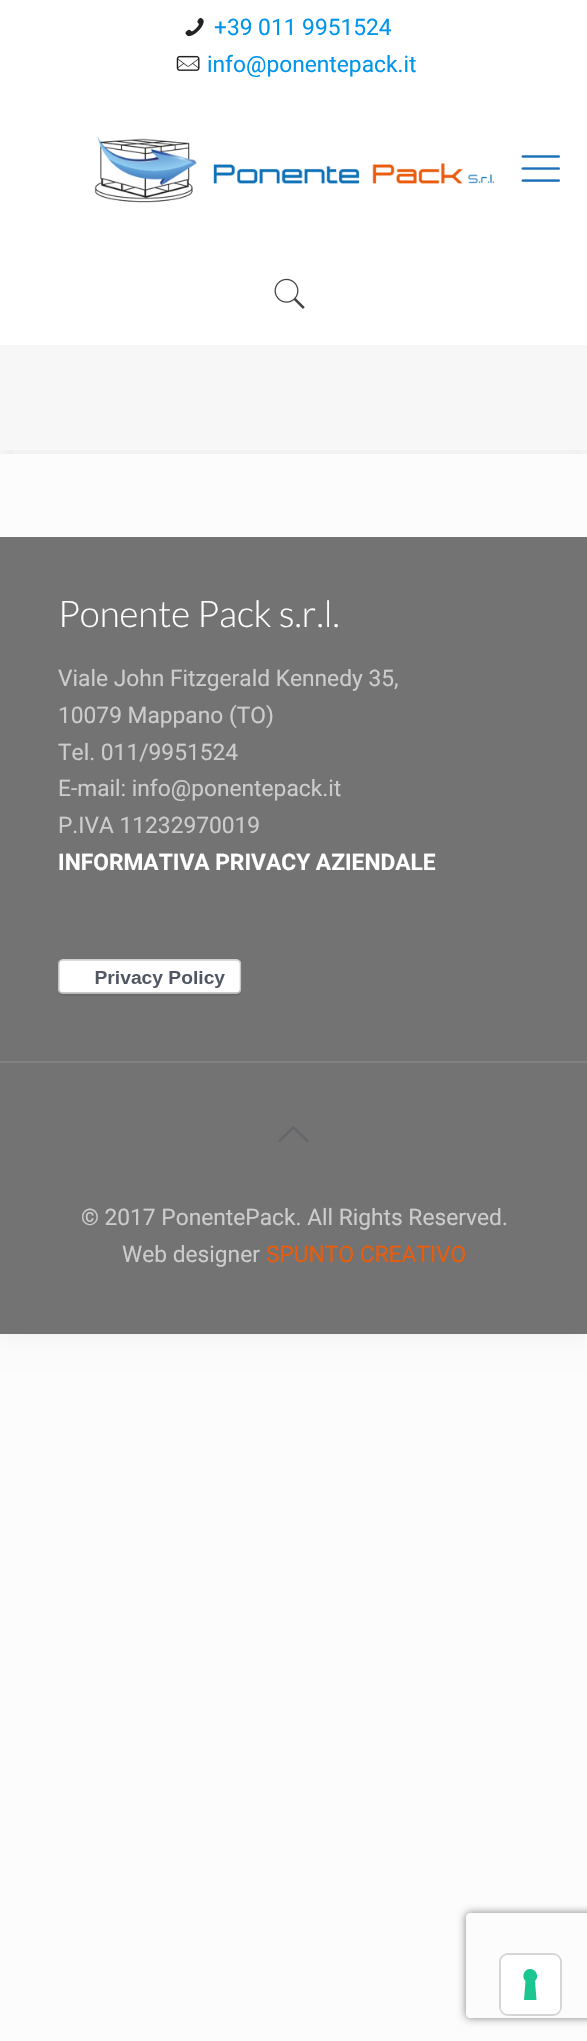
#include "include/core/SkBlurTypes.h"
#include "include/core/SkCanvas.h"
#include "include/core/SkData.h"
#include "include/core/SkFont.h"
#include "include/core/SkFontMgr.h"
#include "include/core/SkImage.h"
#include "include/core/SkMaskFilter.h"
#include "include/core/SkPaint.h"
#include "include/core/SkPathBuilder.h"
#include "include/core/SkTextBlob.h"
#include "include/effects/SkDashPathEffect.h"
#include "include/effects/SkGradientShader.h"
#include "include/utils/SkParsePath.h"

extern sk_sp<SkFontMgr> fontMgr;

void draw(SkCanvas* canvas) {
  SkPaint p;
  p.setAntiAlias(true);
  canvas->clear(SkColorSetRGB(252, 252, 252));
  p.setColor(SkColorSetARGB(15, 0, 0, 0));
  p.setMaskFilter(SkMaskFilter::MakeBlur(kNormal_SkBlurStyle, 13));
  canvas->drawRect(SkRect::MakeLTRB(0, 0, 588, 1334), p);
  p.setMaskFilter(nullptr);
  p.setColor(SkColorSetRGB(252, 252, 252));
  canvas->drawRect(SkRect::MakeLTRB(0, 454, 587, 537), p);
  p.setColor(SK_ColorWHITE);
  canvas->drawRect(SkRect::MakeLTRB(0, 0, 587, 345), p);
  canvas->drawImageRect(SkImages::DeferredFromEncodedData(SkData::MakeFromFileName("images/1.png")), SkRect::MakeLTRB(185, 17, 204, 37), SkSamplingOptions());
  canvas->drawImageRect(SkImages::DeferredFromEncodedData(SkData::MakeFromFileName("images/2.png")), SkRect::MakeLTRB(176, 55, 200, 71), SkSamplingOptions());
  canvas->drawImageRect(SkImages::DeferredFromEncodedData(SkData::MakeFromFileName("images/3.png")), SkRect::MakeLTRB(94, 137, 495, 203), SkSamplingOptions());
  canvas->drawImageRect(SkImages::DeferredFromEncodedData(SkData::MakeFromFileName("images/4.png")), SkRect::MakeLTRB(521, 155, 560, 182), SkSamplingOptions());
  canvas->drawImageRect(SkImages::DeferredFromEncodedData(SkData::MakeFromFileName("images/5.png")), SkRect::MakeLTRB(274, 278, 305, 309), SkSamplingOptions());
  p.setColor(SkColorSetRGB(247, 247, 247));
  canvas->drawRect(SkRect::MakeLTRB(0, 345, 587, 450), p);
  p.setColor(SkColorSetRGB(242, 242, 242));
  canvas->drawRect(SkRect::MakeLTRB(13, 450, 575, 454), p);
  p.setColor(SkColorSetRGB(115, 115, 115));
  canvas->drawRect(SkRect::MakeLTRB(0, 537, 587, 1334), p);
  canvas->drawImageRect(SkImages::DeferredFromEncodedData(SkData::MakeFromFileName("images/6.png")), SkRect::MakeLTRB(58, 959, 242, 996), SkSamplingOptions());
  p.setColor(SkColorSetRGB(129, 129, 129));
  canvas->drawRect(SkRect::MakeLTRB(0, 1061, 587, 1063), p);
  canvas->drawImageRect(SkImages::DeferredFromEncodedData(SkData::MakeFromFileName("images/7.png")), SkRect::MakeLTRB(278, 1126, 309, 1142), SkSamplingOptions());
  canvas->save();
  canvas->clipPath(SkPathBuilder(SkPathFillType::kEvenOdd).moveTo(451, 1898).lineTo(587, 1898).lineTo(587, 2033).lineTo(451, 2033).close().moveTo(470, 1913).lineTo(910, 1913).cubicTo(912, 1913, 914, 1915, 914, 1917).lineTo(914, 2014).cubicTo(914, 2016, 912, 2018, 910, 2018).lineTo(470, 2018).cubicTo(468, 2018, 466, 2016, 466, 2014).lineTo(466, 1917).cubicTo(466, 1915, 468, 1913, 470, 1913).close().detach(), true);
  p.setColor(SkColorSetRGB(128, 128, 128));
  p.setMaskFilter(SkMaskFilter::MakeBlur(kNormal_SkBlurStyle, 4.5f));
  canvas->drawRoundRect(SkRect::MakeLTRB(466, 1913, 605, 2018), 4, 4, p);
  p.setMaskFilter(nullptr);
  canvas->restore();
  p.setStyle(SkPaint::kStroke_Style);
  p.setStrokeWidth(2);
  p.setColor(SkColorSetRGB(214, 214, 214));
  canvas->drawRoundRect(SkRect::MakeLTRB(500, 1954, 561, 2015), 8, 8, p);
  p.setStyle(SkPaint::kFill_Style);
  p.setColor(SK_ColorWHITE);
  canvas->drawRoundRect(SkRect::MakeLTRB(501, 1955, 560, 2014), 7, 7, p);
  p.setColor(SkColorSetRGB(28, 198, 145));
  canvas->drawPath(SkPathBuilder(SkPathFillType::kEvenOdd).moveTo(530, 1969).cubicTo(536.5f, 1969, 539.5f, 1977, 535, 1981).lineTo(536.5f, 2000).lineTo(524, 2000).lineTo(525.5f, 1981).cubicTo(521, 1977, 524, 1969, 530, 1969).close().detach(), p);
  SkFont font1(fontMgr->matchFamilyStyle("Roboto", SkFontStyle::Normal()), 22.75f);
  font1.setSubpixel(true);
  p.setColor(SkColorSetRGB(0, 149, 235));
  canvas->drawString("+39 011 9951524", 214, 35, font1, p);
  canvas->drawString("info@ponentepack.it", 207, 72, font1, p);
  SkFont font2(fontMgr->matchFamilyStyle("Lato", SkFontStyle(300, SkFontStyle::kNormal_Width, SkFontStyle::kUpright_Slant)), 36.75f);
  font2.setSubpixel(true);
  p.setColor(SK_ColorWHITE);
  canvas->drawString("Ponente Pack s.r.l.", 58, 627, font2, p);
  p.setColor(SkColorSetRGB(204, 204, 204));
  canvas->drawString("Viale John Fitzgerald Kennedy 35,", 58, 686, font1, p);
  canvas->drawString("10079 Mappano (TO)", 58, 723, font1, p);
  canvas->drawString("Tel. 011/9951524", 58, 760, font1, p);
  canvas->drawString("E-mail: info@ponentepack.it", 58, 796, font1, p);
  canvas->drawString("P.IVA 11232970019", 58, 833, font1, p);
  SkFont font3(fontMgr->matchFamilyStyle("Roboto", SkFontStyle::Bold()), 22.75f);
  font3.setSubpixel(true);
  p.setColor(SK_ColorWHITE);
  canvas->drawString("INFORMATIVA PRIVACY AZIENDALE", 58, 870, font3, p);
  p.setColor(SkColorSetRGB(204, 204, 204));
  canvas->drawString("© 2017 PonentePack. All Rights Reserved.", 81, 1225, font1, p);
  canvas->drawString("Web designer", 122, 1262, font1, p);
  p.setColor(SkColorSetRGB(233, 92, 12));
  canvas->drawString("SPUNTO CREATIVO", 266, 1262, font1, p);
}
